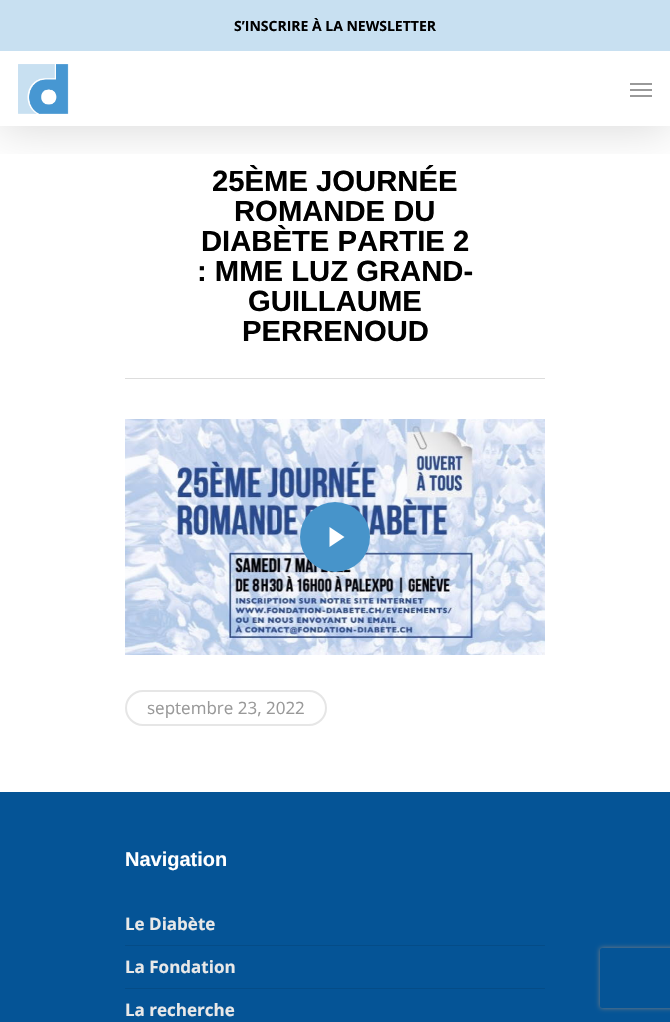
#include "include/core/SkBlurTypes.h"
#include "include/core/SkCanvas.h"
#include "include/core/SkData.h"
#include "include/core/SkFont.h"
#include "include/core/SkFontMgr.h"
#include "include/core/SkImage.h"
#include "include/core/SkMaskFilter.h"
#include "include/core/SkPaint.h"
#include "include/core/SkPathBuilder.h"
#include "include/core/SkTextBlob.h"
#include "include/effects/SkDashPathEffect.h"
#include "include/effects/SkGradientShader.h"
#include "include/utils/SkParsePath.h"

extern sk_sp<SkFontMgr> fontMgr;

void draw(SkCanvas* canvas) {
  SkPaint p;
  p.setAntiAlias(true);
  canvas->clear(SK_ColorWHITE);
  canvas->save();
  canvas->clipRect(SkRect::MakeLTRB(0, 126, 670, 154));
  p.setColor(SkColorSetARGB(38, 0, 0, 0));
  p.setMaskFilter(SkMaskFilter::MakeBlur(kNormal_SkBlurStyle, 22.5f));
  canvas->drawRect(SkRect::MakeLTRB(0, 3, 670, 129), p);
  p.setMaskFilter(nullptr);
  canvas->restore();
  p.setColor(SkColorSetRGB(200, 224, 241));
  canvas->drawRect(SkRect::MakeLTRB(0, 0, 670, 51), p);
  canvas->drawImageRect(SkImages::DeferredFromEncodedData(SkData::MakeFromFileName("images/1.png")), SkRect::MakeLTRB(18, 64, 69, 114), SkSamplingOptions());
  p.setColor(SkColorSetRGB(153, 153, 153));
  canvas->drawRect(SkRect::MakeLTRB(630, 83, 652, 85), p);
  canvas->drawRect(SkRect::MakeLTRB(630, 95, 652, 97), p);
  canvas->drawRect(SkRect::MakeLTRB(630, 89, 652, 91), p);
  p.setColor(SkColorSetRGB(221, 221, 221));
  canvas->drawRect(SkRect::MakeLTRB(125, 378, 545, 379), p);
  canvas->drawImageRect(SkImages::DeferredFromEncodedData(SkData::MakeFromFileName("images/2.png")), SkRect::MakeLTRB(125, 419, 545, 655), SkSamplingOptions());
  p.setColor(SkColorSetRGB(71, 148, 202));
  canvas->drawCircle(335, 537, 35, p);
  p.setColor(SK_ColorWHITE);
  canvas->drawPath(SkPathBuilder().moveTo(329.5f, 527).lineTo(329.5f, 547).lineTo(344.5f, 537).close().detach(), p);
  p.setStyle(SkPaint::kStroke_Style);
  p.setStrokeWidth(2);
  p.setColor(SkColorSetRGB(230, 230, 230));
  canvas->drawRoundRect(SkRect::MakeLTRB(126, 691, 326, 725), 17, 17, p);
  p.setStyle(SkPaint::kFill_Style);
  p.setColor(SkColorSetRGB(5, 84, 150));
  canvas->drawRect(SkRect::MakeLTRB(0, 792, 670, 1022), p);
  p.setColor(SkColorSetRGB(5, 76, 135));
  canvas->drawRect(SkRect::MakeLTRB(125, 945, 545, 946), p);
  canvas->drawRect(SkRect::MakeLTRB(125, 988, 545, 989), p);
  canvas->save();
  canvas->clipPath(SkPathBuilder(SkPathFillType::kEvenOdd).moveTo(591, 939).lineTo(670, 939).lineTo(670, 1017).lineTo(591, 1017).close().moveTo(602, 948).lineTo(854, 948).cubicTo(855, 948, 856, 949, 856, 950).lineTo(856, 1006).cubicTo(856, 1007, 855, 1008, 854, 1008).lineTo(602, 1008).cubicTo(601, 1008, 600, 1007, 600, 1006).lineTo(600, 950).cubicTo(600, 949, 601, 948, 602, 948).close().detach(), true);
  p.setColor(SkColorSetRGB(128, 128, 128));
  p.setMaskFilter(SkMaskFilter::MakeBlur(kNormal_SkBlurStyle, 2.5f));
  canvas->drawRoundRect(SkRect::MakeLTRB(600, 948, 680, 1008), 2, 2, p);
  p.setMaskFilter(nullptr);
  canvas->restore();
  SkFont font1(fontMgr->matchFamilyStyle("Open Sans", SkFontStyle::Bold()), 14);
  font1.setSubpixel(true);
  p.setColor(SK_ColorBLACK);
  canvas->drawString("S’INSCRIRE À LA NEWSLETTER", 234, 31, font1, p);
  SkFont font2(fontMgr->matchFamilyStyle("Liberation Sans", SkFontStyle::Bold()), 29.25f);
  font2.setSubpixel(true);
  canvas->drawString("25ÈME JOURNÉE", 212, 191, font2, p);
  canvas->drawString("ROMANDE DU", 234, 221, font2, p);
  canvas->drawString("DIABÈTE PARTIE 2", 201, 251, font2, p);
  canvas->drawString(": MME LUZ GRAND-", 197, 281, font2, p);
  canvas->drawString("GUILLAUME", 248, 311, font2, p);
  canvas->drawString("PERRENOUD", 242, 341, font2, p);
  SkFont font3(fontMgr->matchFamilyStyle("Open Sans", SkFontStyle::Normal()), 17);
  font3.setSubpixel(true);
  p.setColor(SkColorSetRGB(153, 153, 153));
  canvas->drawString("septembre 23, 2022", 147, 714, font3, p);
  SkFont font4(fontMgr->matchFamilyStyle("Liberation Sans", SkFontStyle::Bold()), 20);
  font4.setSubpixel(true);
  p.setColor(SK_ColorWHITE);
  canvas->drawString("Navigation", 125, 866, font4, p);
  SkFont font5(fontMgr->matchFamilyStyle("Open Sans", SkFontStyle::Bold()), 17);
  font5.setSubpixel(true);
  p.setColor(SkColorSetRGB(232, 232, 232));
  canvas->drawString("Le Diabète", 125, 930, font5, p);
  canvas->drawString("La Fondation", 125, 973, font5, p);
  canvas->drawString("La recherche", 125, 1016, font5, p);
}
